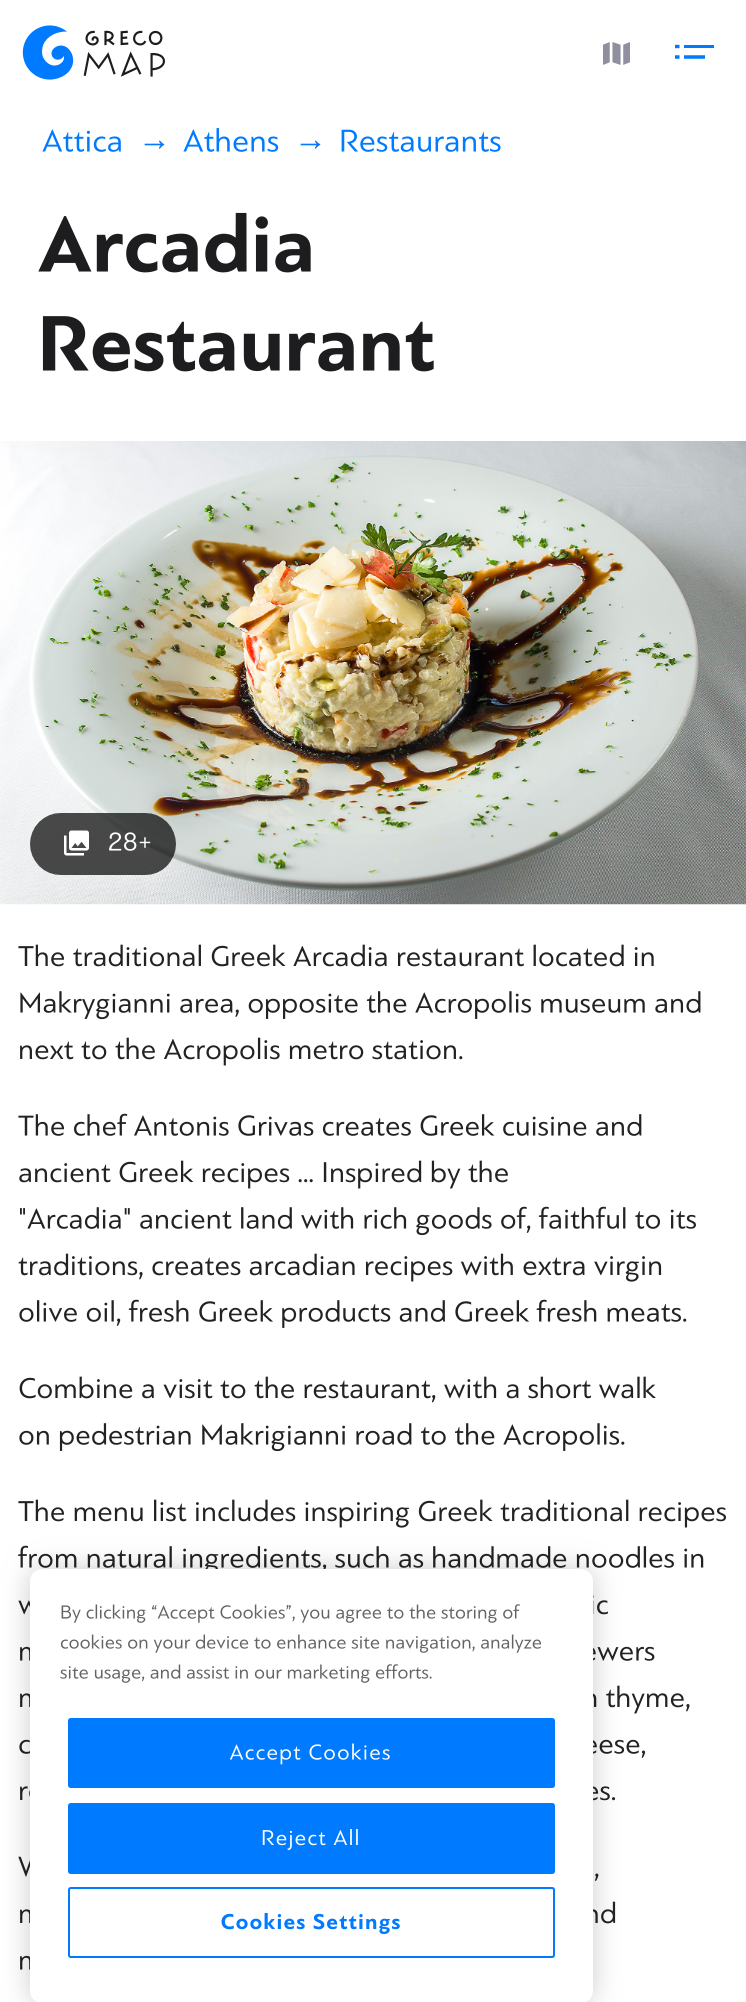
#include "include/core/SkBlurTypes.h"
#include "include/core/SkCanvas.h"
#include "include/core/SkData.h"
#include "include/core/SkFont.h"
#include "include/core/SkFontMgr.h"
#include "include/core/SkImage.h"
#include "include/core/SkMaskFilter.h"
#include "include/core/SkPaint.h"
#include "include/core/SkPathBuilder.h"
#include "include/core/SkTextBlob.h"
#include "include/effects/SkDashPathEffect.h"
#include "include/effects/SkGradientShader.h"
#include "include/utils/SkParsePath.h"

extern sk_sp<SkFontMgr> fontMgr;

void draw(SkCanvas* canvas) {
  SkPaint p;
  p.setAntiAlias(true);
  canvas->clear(SK_ColorWHITE);
  canvas->drawImageRect(SkImages::DeferredFromEncodedData(SkData::MakeFromFileName("images/1.png")), SkRect::MakeLTRB(22, 25, 74, 80), SkSamplingOptions());
  canvas->drawImageRect(SkImages::DeferredFromEncodedData(SkData::MakeFromFileName("images/2.png")), SkRect::MakeLTRB(83, 30, 165, 77), SkSamplingOptions());
  canvas->drawImageRect(SkImages::DeferredFromEncodedData(SkData::MakeFromFileName("images/3.png")), SkRect::MakeLTRB(603, 42, 630, 65), SkSamplingOptions());
  p.setStyle(SkPaint::kStroke_Style);
  p.setStrokeWidth(3.4f);
  p.setColor(SkColorSetRGB(0, 122, 255));
  canvas->drawPath(SkPathBuilder().moveTo(675, 46.5f).lineTo(679.5f, 46.5f).detach(), p);
  p.setStyle(SkPaint::kFill_Style);
  canvas->drawRect(SkRect::MakeLTRB(684, 45, 714, 48), p);
  p.setStyle(SkPaint::kStroke_Style);
  canvas->drawPath(SkPathBuilder().moveTo(675, 57).lineTo(679.5f, 57).moveTo(684, 57).lineTo(705, 57).detach(), p);
  canvas->drawImageRect(SkImages::DeferredFromEncodedData(SkData::MakeFromFileName("images/4.png")), SkRect::MakeLTRB(42, 129, 121, 152), SkSamplingOptions());
  canvas->drawImageRect(SkImages::DeferredFromEncodedData(SkData::MakeFromFileName("images/5.png")), SkRect::MakeLTRB(183, 128, 279, 152), SkSamplingOptions());
  canvas->drawImageRect(SkImages::DeferredFromEncodedData(SkData::MakeFromFileName("images/6.png")), SkRect::MakeLTRB(341, 129, 501, 152), SkSamplingOptions());
  canvas->drawImageRect(SkImages::DeferredFromEncodedData(SkData::MakeFromFileName("images/7.png")), SkRect::MakeLTRB(38, 212, 311, 273), SkSamplingOptions());
  canvas->drawImageRect(SkImages::DeferredFromEncodedData(SkData::MakeFromFileName("images/8.png")), SkRect::MakeLTRB(42, 316, 434, 372), SkSamplingOptions());
  canvas->drawImageRect(SkImages::DeferredFromEncodedData(SkData::MakeFromFileName("images/9.png")), SkRect::MakeLTRB(0, 441, 746, 905), SkSamplingOptions());
  p.setStyle(SkPaint::kFill_Style);
  p.setColor(SkColorSetARGB(179, 0, 0, 0));
  canvas->drawRoundRect(SkRect::MakeLTRB(30, 813, 176, 875), 31, 31, p);
  canvas->drawImageRect(SkImages::DeferredFromEncodedData(SkData::MakeFromFileName("images/10.png")), SkRect::MakeLTRB(64, 830, 89, 856), SkSamplingOptions());
  canvas->drawImageRect(SkImages::DeferredFromEncodedData(SkData::MakeFromFileName("images/11.png")), SkRect::MakeLTRB(109, 832, 151, 851), SkSamplingOptions());
  canvas->drawImageRect(SkImages::DeferredFromEncodedData(SkData::MakeFromFileName("images/12.png")), SkRect::MakeLTRB(18, 944, 654, 967), SkSamplingOptions());
  canvas->drawImageRect(SkImages::DeferredFromEncodedData(SkData::MakeFromFileName("images/13.png")), SkRect::MakeLTRB(20, 991, 701, 1020), SkSamplingOptions());
  canvas->drawImageRect(SkImages::DeferredFromEncodedData(SkData::MakeFromFileName("images/14.png")), SkRect::MakeLTRB(20, 1037, 463, 1066), SkSamplingOptions());
  canvas->drawImageRect(SkImages::DeferredFromEncodedData(SkData::MakeFromFileName("images/15.png")), SkRect::MakeLTRB(18, 1113, 642, 1136), SkSamplingOptions());
  canvas->drawImageRect(SkImages::DeferredFromEncodedData(SkData::MakeFromFileName("images/16.png")), SkRect::MakeLTRB(19, 1160, 508, 1189), SkSamplingOptions());
  canvas->drawImageRect(SkImages::DeferredFromEncodedData(SkData::MakeFromFileName("images/17.png")), SkRect::MakeLTRB(20, 1206, 696, 1236), SkSamplingOptions());
  canvas->drawImageRect(SkImages::DeferredFromEncodedData(SkData::MakeFromFileName("images/18.png")), SkRect::MakeLTRB(18, 1253, 662, 1282), SkSamplingOptions());
  canvas->drawImageRect(SkImages::DeferredFromEncodedData(SkData::MakeFromFileName("images/19.png")), SkRect::MakeLTRB(19, 1299, 687, 1328), SkSamplingOptions());
  canvas->drawImageRect(SkImages::DeferredFromEncodedData(SkData::MakeFromFileName("images/20.png")), SkRect::MakeLTRB(19, 1376, 656, 1403), SkSamplingOptions());
  canvas->drawImageRect(SkImages::DeferredFromEncodedData(SkData::MakeFromFileName("images/21.png")), SkRect::MakeLTRB(19, 1423, 625, 1452), SkSamplingOptions());
  canvas->drawImageRect(SkImages::DeferredFromEncodedData(SkData::MakeFromFileName("images/22.png")), SkRect::MakeLTRB(18, 1499, 726, 1528), SkSamplingOptions());
  canvas->drawImageRect(SkImages::DeferredFromEncodedData(SkData::MakeFromFileName("images/23.png")), SkRect::MakeLTRB(18, 1545, 704, 1569), SkSamplingOptions());
  canvas->drawImageRect(SkImages::DeferredFromEncodedData(SkData::MakeFromFileName("images/24.png")), SkRect::MakeLTRB(18, 1595, 608, 1615), SkSamplingOptions());
  canvas->drawImageRect(SkImages::DeferredFromEncodedData(SkData::MakeFromFileName("images/25.png")), SkRect::MakeLTRB(20, 1646, 655, 1661), SkSamplingOptions());
  canvas->drawImageRect(SkImages::DeferredFromEncodedData(SkData::MakeFromFileName("images/26.png")), SkRect::MakeLTRB(20, 1685, 690, 1714), SkSamplingOptions());
  canvas->drawImageRect(SkImages::DeferredFromEncodedData(SkData::MakeFromFileName("images/27.png")), SkRect::MakeLTRB(19, 1739, 646, 1758), SkSamplingOptions());
  canvas->drawImageRect(SkImages::DeferredFromEncodedData(SkData::MakeFromFileName("images/28.png")), SkRect::MakeLTRB(20, 1786, 616, 1801), SkSamplingOptions());
  canvas->drawImageRect(SkImages::DeferredFromEncodedData(SkData::MakeFromFileName("images/29.png")), SkRect::MakeLTRB(18, 1856, 599, 1881), SkSamplingOptions());
  canvas->drawImageRect(SkImages::DeferredFromEncodedData(SkData::MakeFromFileName("images/30.png")), SkRect::MakeLTRB(20, 1901, 616, 1924), SkSamplingOptions());
  canvas->drawImageRect(SkImages::DeferredFromEncodedData(SkData::MakeFromFileName("images/31.png")), SkRect::MakeLTRB(20, 1955, 30, 1970), SkSamplingOptions());
  p.setColor(SkColorSetARGB(51, 0, 0, 0));
  p.setMaskFilter(SkMaskFilter::MakeBlur(kNormal_SkBlurStyle, 13.5f));
  canvas->drawRoundRect(SkRect::MakeLTRB(30, 1569, 593, 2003), 12, 12, p);
  p.setMaskFilter(nullptr);
  p.setColor(SK_ColorWHITE);
  canvas->drawRoundRect(SkRect::MakeLTRB(30, 1569, 593, 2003), 12, 12, p);
  canvas->drawImageRect(SkImages::DeferredFromEncodedData(SkData::MakeFromFileName("images/32.png")), SkRect::MakeLTRB(61, 1604, 520, 1623), SkSamplingOptions());
  canvas->drawImageRect(SkImages::DeferredFromEncodedData(SkData::MakeFromFileName("images/33.png")), SkRect::MakeLTRB(60, 1634, 542, 1653), SkSamplingOptions());
  canvas->drawImageRect(SkImages::DeferredFromEncodedData(SkData::MakeFromFileName("images/34.png")), SkRect::MakeLTRB(60, 1664, 432, 1683), SkSamplingOptions());
  p.setColor(SkColorSetRGB(0, 122, 255));
  canvas->drawRoundRect(SkRect::MakeLTRB(69, 1719, 554, 1787), 2, 2, p);
  p.setStyle(SkPaint::kStroke_Style);
  p.setStrokeWidth(2);
  canvas->drawRoundRect(SkRect::MakeLTRB(69, 1719, 554, 1787), 2, 2, p);
  canvas->drawImageRect(SkImages::DeferredFromEncodedData(SkData::MakeFromFileName("images/35.png")), SkRect::MakeLTRB(229, 1743, 390, 1765), SkSamplingOptions());
  p.setStyle(SkPaint::kFill_Style);
  canvas->drawRoundRect(SkRect::MakeLTRB(69, 1804, 554, 1873), 2, 2, p);
  p.setStyle(SkPaint::kStroke_Style);
  canvas->drawRoundRect(SkRect::MakeLTRB(69, 1804, 554, 1873), 2, 2, p);
  canvas->drawImageRect(SkImages::DeferredFromEncodedData(SkData::MakeFromFileName("images/36.png")), SkRect::MakeLTRB(262, 1829, 358, 1851), SkSamplingOptions());
  canvas->drawRoundRect(SkRect::MakeLTRB(69, 1888, 554, 1957), 2, 2, p);
  canvas->drawImageRect(SkImages::DeferredFromEncodedData(SkData::MakeFromFileName("images/37.png")), SkRect::MakeLTRB(221, 1913, 400, 1935), SkSamplingOptions());
  SkFont font1(fontMgr->matchFamilyStyle("Liberation Sans", SkFontStyle::Normal()), 33);
  font1.setSubpixel(true);
  p.setStyle(SkPaint::kFill_Style);
  canvas->drawString("→", 138, 150, font1, p);
  canvas->drawString("→", 294, 150, font1, p);
}
